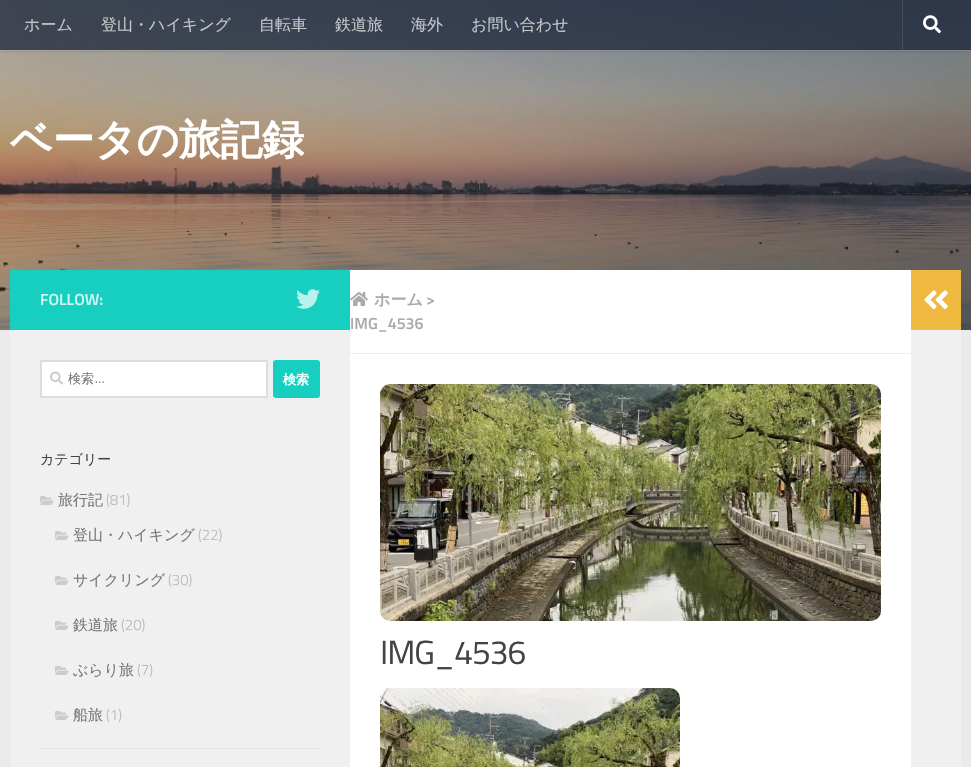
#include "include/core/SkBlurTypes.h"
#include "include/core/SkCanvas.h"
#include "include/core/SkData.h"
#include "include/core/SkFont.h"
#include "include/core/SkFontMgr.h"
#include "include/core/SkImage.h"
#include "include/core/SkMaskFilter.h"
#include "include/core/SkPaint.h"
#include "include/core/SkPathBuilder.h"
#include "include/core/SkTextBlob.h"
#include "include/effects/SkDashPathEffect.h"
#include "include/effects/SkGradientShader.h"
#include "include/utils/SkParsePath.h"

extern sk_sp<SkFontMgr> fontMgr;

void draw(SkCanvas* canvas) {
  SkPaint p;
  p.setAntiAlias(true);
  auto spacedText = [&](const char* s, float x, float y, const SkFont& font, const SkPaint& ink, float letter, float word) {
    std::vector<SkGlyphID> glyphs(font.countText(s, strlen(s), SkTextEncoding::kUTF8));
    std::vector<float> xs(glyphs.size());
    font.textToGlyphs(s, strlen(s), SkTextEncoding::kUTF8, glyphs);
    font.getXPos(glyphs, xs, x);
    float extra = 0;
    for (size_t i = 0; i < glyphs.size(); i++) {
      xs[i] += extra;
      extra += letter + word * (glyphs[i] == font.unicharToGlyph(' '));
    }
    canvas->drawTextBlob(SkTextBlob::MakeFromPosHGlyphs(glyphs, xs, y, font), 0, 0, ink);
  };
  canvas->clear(SkColorSetRGB(234, 234, 234));
  canvas->drawImageRect(SkImages::DeferredFromEncodedData(SkData::MakeFromFileName("images/1.png")), SkRect::MakeLTRB(0, 0, 971, 330), SkSamplingOptions());
  p.setColor(SkColorSetARGB(38, 255, 255, 255));
  canvas->drawRect(SkRect::MakeLTRB(0, 50, 971, 51), p);
  canvas->save();
  canvas->clipRect(SkRect::MakeLTRB(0, 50, 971, 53));
  p.setColor(SkColorSetARGB(51, 0, 0, 0));
  p.setMaskFilter(SkMaskFilter::MakeBlur(kNormal_SkBlurStyle, 2.5f));
  canvas->drawRect(SkRect::MakeLTRB(0, 0, 971, 50), p);
  p.setMaskFilter(nullptr);
  canvas->restore();
  p.setColor(SkColorSetARGB(179, 18, 29, 48));
  canvas->drawRect(SkRect::MakeLTRB(0, 0, 971, 50), p);
  p.setColor(SkColorSetARGB(26, 255, 255, 255));
  canvas->drawRect(SkRect::MakeLTRB(902, 0, 903, 50), p);
  canvas->drawImageRect(SkImages::DeferredFromEncodedData(SkData::MakeFromFileName("images/2.png")), SkRect::MakeLTRB(923, 15, 941, 34), SkSamplingOptions());
  p.setColor(SK_ColorWHITE);
  canvas->drawRect(SkRect::MakeLTRB(350, 270, 911, 767), p);
  p.setColor(SkColorSetRGB(240, 240, 240));
  canvas->drawRect(SkRect::MakeLTRB(10, 330, 350, 767), p);
  p.setColor(SkColorSetRGB(22, 207, 193));
  canvas->drawRect(SkRect::MakeLTRB(10, 270, 350, 330), p);
  canvas->drawImageRect(SkImages::DeferredFromEncodedData(SkData::MakeFromFileName("images/3.png")), SkRect::MakeLTRB(296, 289, 320, 309), SkSamplingOptions());
  p.setColor(SK_ColorWHITE);
  canvas->drawRect(SkRect::MakeLTRB(41, 361, 267, 397), p);
  p.setStyle(SkPaint::kStroke_Style);
  p.setStrokeWidth(2);
  p.setColor(SkColorSetRGB(221, 221, 221));
  canvas->drawRect(SkRect::MakeLTRB(41, 361, 267, 397), p);
  canvas->drawImageRect(SkImages::DeferredFromEncodedData(SkData::MakeFromFileName("images/4.png")), SkRect::MakeLTRB(50, 371, 63, 385), SkSamplingOptions());
  p.setStyle(SkPaint::kFill_Style);
  p.setColor(SkColorSetRGB(22, 207, 193));
  canvas->drawRoundRect(SkRect::MakeLTRB(273, 360, 320, 398), 3, 3, p);
  p.setColor(SkColorSetRGB(228, 228, 228));
  canvas->drawRect(SkRect::MakeLTRB(40, 748, 320, 749), p);
  canvas->drawImageRect(SkImages::DeferredFromEncodedData(SkData::MakeFromFileName("images/5.png")), SkRect::MakeLTRB(40, 496, 54, 505), SkSamplingOptions());
  canvas->drawImageRect(SkImages::DeferredFromEncodedData(SkData::MakeFromFileName("images/5.png")), SkRect::MakeLTRB(55, 531, 69, 540), SkSamplingOptions());
  canvas->drawImageRect(SkImages::DeferredFromEncodedData(SkData::MakeFromFileName("images/5.png")), SkRect::MakeLTRB(55, 576, 69, 585), SkSamplingOptions());
  canvas->drawImageRect(SkImages::DeferredFromEncodedData(SkData::MakeFromFileName("images/5.png")), SkRect::MakeLTRB(55, 621, 69, 630), SkSamplingOptions());
  canvas->drawImageRect(SkImages::DeferredFromEncodedData(SkData::MakeFromFileName("images/5.png")), SkRect::MakeLTRB(55, 666, 69, 675), SkSamplingOptions());
  canvas->drawImageRect(SkImages::DeferredFromEncodedData(SkData::MakeFromFileName("images/5.png")), SkRect::MakeLTRB(55, 711, 69, 720), SkSamplingOptions());
  p.setColor(SkColorSetRGB(238, 238, 238));
  canvas->drawRect(SkRect::MakeLTRB(350, 353, 911, 354), p);
  canvas->drawImageRect(SkImages::DeferredFromEncodedData(SkData::MakeFromFileName("images/6.png")), SkRect::MakeLTRB(350, 292, 368, 306), SkSamplingOptions());
  canvas->drawImageRect(SkImages::DeferredFromEncodedData(SkData::MakeFromFileName("images/7.png")), SkRect::MakeLTRB(380, 384, 881, 621), SkSamplingOptions());
  canvas->drawImageRect(SkImages::DeferredFromEncodedData(SkData::MakeFromFileName("images/8.png")), SkRect::MakeLTRB(380, 688, 680, 767), SkSamplingOptions());
  p.setColor(SkColorSetRGB(239, 185, 63));
  canvas->drawRect(SkRect::MakeLTRB(911, 270, 961, 329), p);
  p.setColor(SkColorSetRGB(241, 192, 82));
  canvas->drawRect(SkRect::MakeLTRB(911, 329, 961, 330), p);
  canvas->drawImageRect(SkImages::DeferredFromEncodedData(SkData::MakeFromFileName("images/9.png")), SkRect::MakeLTRB(924, 290, 948, 310), SkSamplingOptions());
  p.setColor(SkColorSetRGB(240, 240, 240));
  canvas->drawRect(SkRect::MakeLTRB(911, 330, 961, 767), p);
  SkFont font1(fontMgr->matchFamilyStyle("WenQuanYi Zen Hei", SkFontStyle(500, SkFontStyle::kNormal_Width, SkFontStyle::kUpright_Slant)), 16);
  font1.setSubpixel(true);
  p.setColor(SkColorSetRGB(197, 199, 202));
  canvas->drawString("ホーム", 24, 30, font1, p);
  canvas->drawString("登山・ハイキング", 101, 30, font1, p);
  canvas->drawString("自転車", 259, 30, font1, p);
  canvas->drawString("鉄道旅", 335, 30, font1, p);
  canvas->drawString("海外", 411, 30, font1, p);
  canvas->drawString("お問い合わせ", 471, 30, font1, p);
  SkFont font2(fontMgr->matchFamilyStyle("WenQuanYi Zen Hei", SkFontStyle::Bold()), 42);
  font2.setSubpixel(true);
  p.setColor(SK_ColorWHITE);
  spacedText("ベータの旅記録", 10, 154, font2, p, -0.5f, 0);
  SkFont font3(fontMgr->matchFamilyStyle("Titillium", SkFontStyle(600, SkFontStyle::kNormal_Width, SkFontStyle::kUpright_Slant)), 16);
  font3.setSubpixel(true);
  p.setColor(SkColorSetRGB(208, 245, 243));
  canvas->drawString("FOLLOW:", 40, 305, font3, p);
  SkFont font4(fontMgr->matchFamilyStyle("WenQuanYi Zen Hei", SkFontStyle(500, SkFontStyle::kNormal_Width, SkFontStyle::kUpright_Slant)), 13);
  font4.setSubpixel(true);
  p.setColor(SkColorSetRGB(119, 119, 119));
  canvas->drawString("検索", 68, 383, font4, p);
  SkFont font5(fontMgr->matchFamilyStyle("Titillium", SkFontStyle::Normal()), 13);
  font5.setSubpixel(true);
  canvas->drawString("…", 95, 383, font5, p);
  SkFont font6(fontMgr->matchFamilyStyle("WenQuanYi Zen Hei", SkFontStyle::Bold()), 13);
  font6.setSubpixel(true);
  p.setColor(SK_ColorWHITE);
  canvas->drawString("検索", 283, 384, font6, p);
  SkFont font7(fontMgr->matchFamilyStyle("WenQuanYi Zen Hei", SkFontStyle(500, SkFontStyle::kNormal_Width, SkFontStyle::kUpright_Slant)), 14);
  font7.setSubpixel(true);
  p.setColor(SkColorSetRGB(68, 68, 68));
  canvas->drawString("カテゴリー", 40, 464, font7, p);
  SkFont font8(fontMgr->matchFamilyStyle("WenQuanYi Zen Hei", SkFontStyle(500, SkFontStyle::kNormal_Width, SkFontStyle::kUpright_Slant)), 15);
  font8.setSubpixel(true);
  p.setColor(SkColorSetRGB(119, 119, 119));
  canvas->drawString("旅行記", 58, 505, font8, p);
  SkFont font9(fontMgr->matchFamilyStyle("Titillium", SkFontStyle(300, SkFontStyle::kNormal_Width, SkFontStyle::kUpright_Slant)), 15);
  font9.setSubpixel(true);
  p.setColor(SkColorSetRGB(187, 187, 187));
  canvas->drawString("(81)", 106, 505, font9, p);
  p.setColor(SkColorSetRGB(119, 119, 119));
  canvas->drawString("登山・ハイキング", 73, 540, font8, p);
  p.setColor(SkColorSetRGB(187, 187, 187));
  canvas->drawString("(22)", 198, 540, font9, p);
  p.setColor(SkColorSetRGB(119, 119, 119));
  canvas->drawString("サイクリング", 73, 585, font8, p);
  p.setColor(SkColorSetRGB(187, 187, 187));
  canvas->drawString("(30)", 168, 585, font9, p);
  p.setColor(SkColorSetRGB(119, 119, 119));
  canvas->drawString("鉄道旅", 73, 630, font8, p);
  p.setColor(SkColorSetRGB(187, 187, 187));
  canvas->drawString("(20)", 121, 630, font9, p);
  p.setColor(SkColorSetRGB(119, 119, 119));
  canvas->drawString("ぶらり旅", 73, 675, font8, p);
  p.setColor(SkColorSetRGB(187, 187, 187));
  canvas->drawString("(7)", 137, 675, font9, p);
  p.setColor(SkColorSetRGB(119, 119, 119));
  canvas->drawString("船旅", 73, 720, font8, p);
  p.setColor(SkColorSetRGB(187, 187, 187));
  canvas->drawString("(1)", 106, 720, font9, p);
  SkFont font10(fontMgr->matchFamilyStyle("WenQuanYi Zen Hei", SkFontStyle::Bold()), 16);
  font10.setSubpixel(true);
  p.setColor(SkColorSetRGB(170, 170, 170));
  canvas->drawString("ホーム", 374, 305, font10, p);
  canvas->drawString(">", 426, 305, font3, p);
  canvas->drawString("IMG_4536", 350, 329, font3, p);
  SkFont font11(fontMgr->matchFamilyStyle("Titillium", SkFontStyle::Normal()), 33.5f);
  font11.setSubpixel(true);
  p.setColor(SkColorSetRGB(68, 68, 68));
  spacedText("IMG_4536", 380, 664, font11, p, -1, 0);
}
